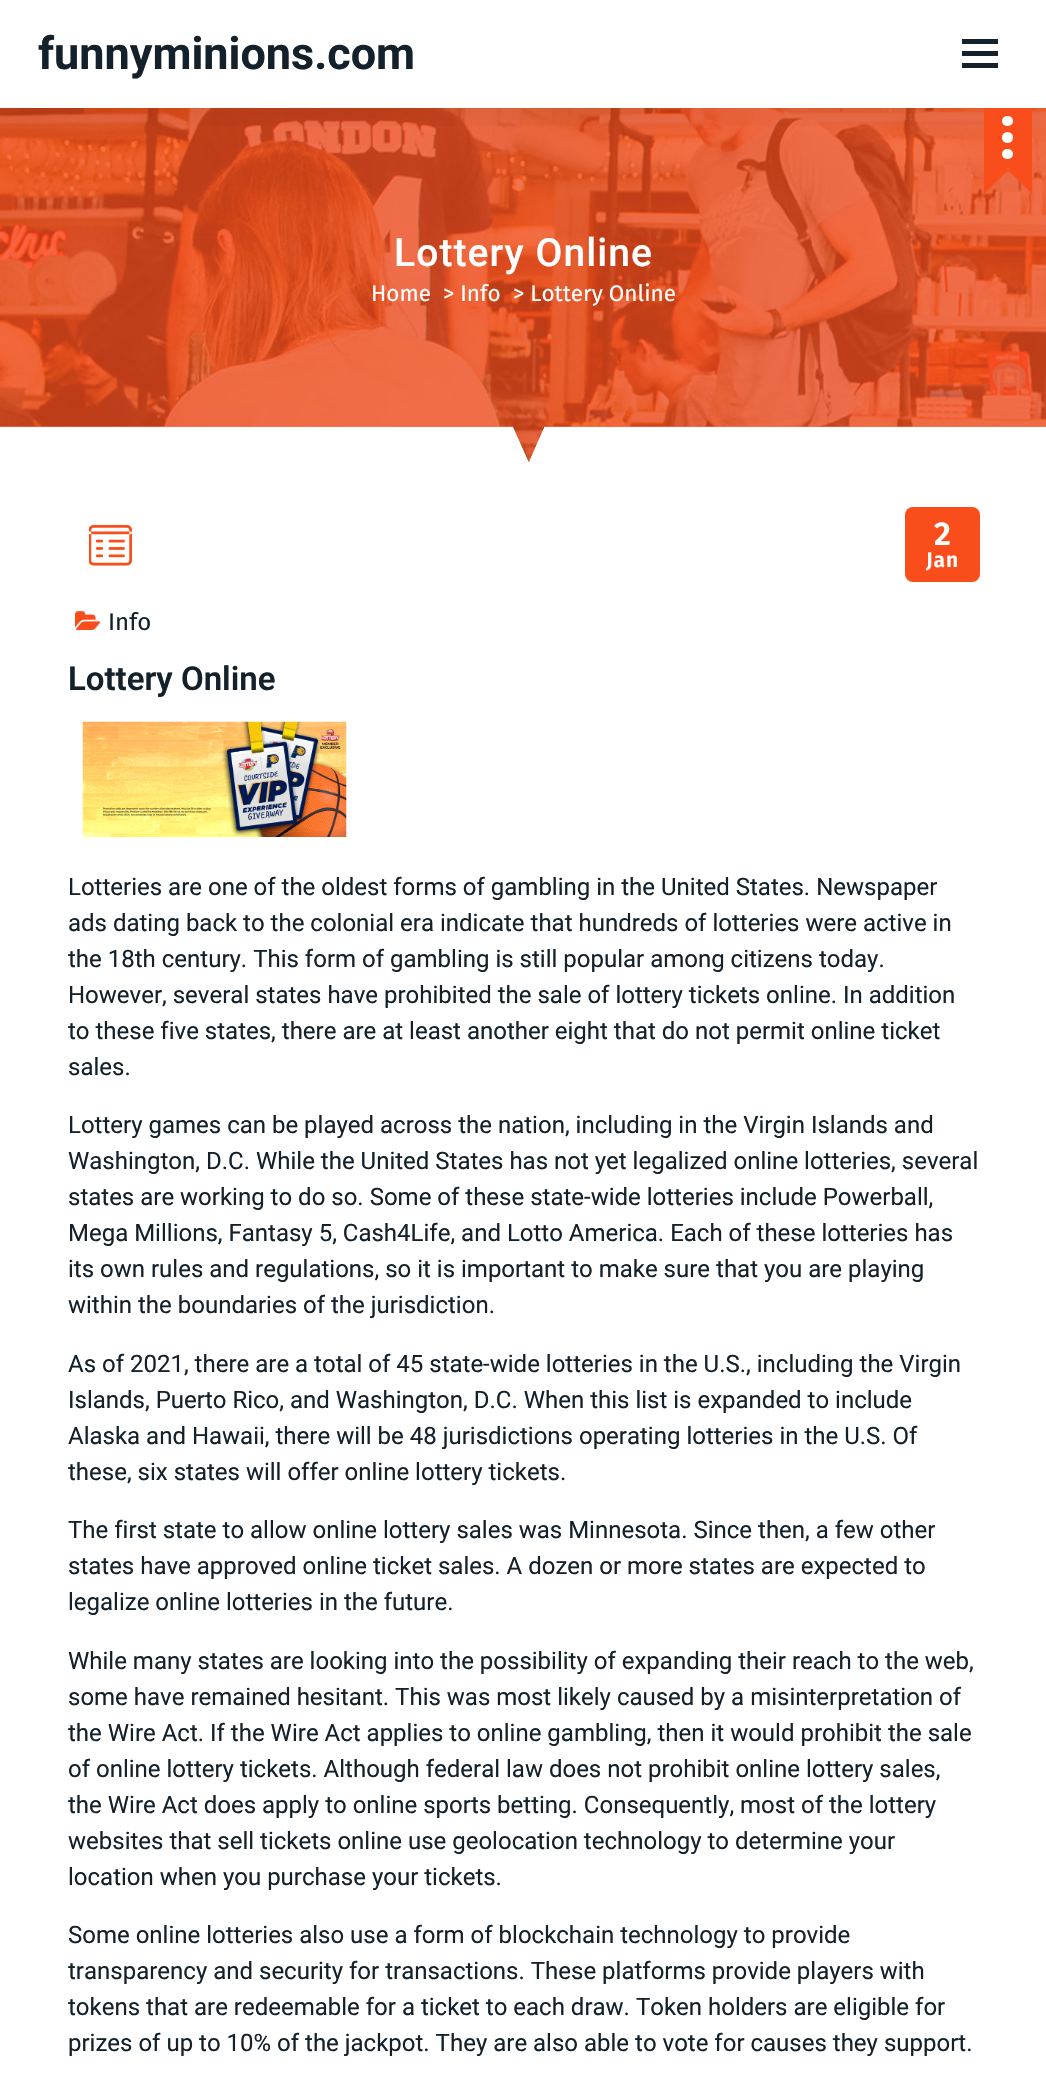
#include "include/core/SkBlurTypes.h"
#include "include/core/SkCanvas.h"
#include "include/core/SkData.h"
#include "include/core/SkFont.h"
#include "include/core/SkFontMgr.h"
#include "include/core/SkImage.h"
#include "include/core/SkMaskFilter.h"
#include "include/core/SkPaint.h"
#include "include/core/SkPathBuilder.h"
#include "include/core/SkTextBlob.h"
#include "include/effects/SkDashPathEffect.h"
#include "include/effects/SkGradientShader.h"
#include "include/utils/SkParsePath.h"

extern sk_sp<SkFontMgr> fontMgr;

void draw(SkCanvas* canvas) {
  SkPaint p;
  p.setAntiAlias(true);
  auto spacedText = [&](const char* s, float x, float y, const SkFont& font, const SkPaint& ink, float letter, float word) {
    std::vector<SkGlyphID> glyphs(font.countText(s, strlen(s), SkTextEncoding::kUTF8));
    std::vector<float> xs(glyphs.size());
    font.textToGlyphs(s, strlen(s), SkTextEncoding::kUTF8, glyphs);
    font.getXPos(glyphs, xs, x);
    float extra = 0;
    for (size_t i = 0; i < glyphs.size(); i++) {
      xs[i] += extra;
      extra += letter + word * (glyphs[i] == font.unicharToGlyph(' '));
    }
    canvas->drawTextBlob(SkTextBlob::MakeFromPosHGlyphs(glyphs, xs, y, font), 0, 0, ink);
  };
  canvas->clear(SK_ColorWHITE);
  canvas->drawImageRect(SkImages::DeferredFromEncodedData(SkData::MakeFromFileName("images/1.png")), SkRect::MakeLTRB(0, 108, 1046, 462), SkSamplingOptions());
  p.setColor(SkColorSetARGB(191, 249, 77, 28));
  canvas->drawPath(SkPathBuilder().moveTo(0, 108).lineTo(0, 427).lineTo(513, 427).lineTo(529, 462).lineTo(544, 427).lineTo(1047, 427).lineTo(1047, 108).close().detach(), p);
  canvas->save();
  canvas->clipRect(SkRect::MakeLTRB(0, 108, 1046, 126));
  p.setColor(SkColorSetARGB(13, 0, 0, 0));
  p.setMaskFilter(SkMaskFilter::MakeBlur(kNormal_SkBlurStyle, 11));
  canvas->drawRect(SkRect::MakeLTRB(0, 15, 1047, 123), p);
  p.setMaskFilter(nullptr);
  canvas->restore();
  p.setColor(SkColorSetRGB(20, 33, 42));
  canvas->drawRect(SkRect::MakeLTRB(962, 39, 998, 44), p);
  canvas->drawRect(SkRect::MakeLTRB(962, 51, 998, 56), p);
  canvas->drawRect(SkRect::MakeLTRB(962, 63, 998, 68), p);
  p.setColor(SkColorSetRGB(249, 77, 28));
  canvas->drawRect(SkRect::MakeLTRB(984, 108, 1032, 168), p);
  p.setColor(SK_ColorWHITE);
  canvas->drawCircle(1007.5f, 137.5f, 5.5f, p);
  canvas->drawRoundRect(SkRect::MakeLTRB(1002, 116, 1013, 126), 5, 5, p);
  p.setColor(SkColorSetRGB(249, 77, 28));
  canvas->drawPath(SkPathBuilder().moveTo(1032, 146).lineTo(1032, 194).lineTo(1008, 170).close().moveTo(984, 194).lineTo(984, 146).lineTo(1008, 170).close().detach(), p);
  p.setColor(SK_ColorWHITE);
  canvas->drawRoundRect(SkRect::MakeLTRB(1002, 149, 1013, 159), 5, 5, p);
  p.setColor(SkColorSetRGB(249, 77, 28));
  canvas->drawRoundRect(SkRect::MakeLTRB(905, 507, 980, 582), 8, 8, p);
  canvas->drawImageRect(SkImages::DeferredFromEncodedData(SkData::MakeFromFileName("images/2.png")), SkRect::MakeLTRB(75, 611, 101, 630), SkSamplingOptions());
  canvas->drawImageRect(SkImages::DeferredFromEncodedData(SkData::MakeFromFileName("images/3.png")), SkRect::MakeLTRB(82, 721, 347, 837), SkSamplingOptions());
  canvas->drawImageRect(SkImages::DeferredFromEncodedData(SkData::MakeFromFileName("images/4.png")), SkRect::MakeLTRB(89, 525, 132, 566), SkSamplingOptions());
  SkFont font1(fontMgr->matchFamilyStyle("Roboto", SkFontStyle::Bold()), 45);
  font1.setSubpixel(true);
  p.setColor(SkColorSetRGB(20, 33, 42));
  canvas->drawString("funnyminions.com", 38, 69, font1, p);
  SkFont font2(fontMgr->matchFamilyStyle("Roboto", SkFontStyle(500, SkFontStyle::kNormal_Width, SkFontStyle::kUpright_Slant)), 39);
  font2.setSubpixel(true);
  p.setColor(SK_ColorWHITE);
  spacedText("Lottery Online", 394, 266, font2, p, 1.1f, 0);
  SkFont font3(fontMgr->matchFamilyStyle("Fira Sans", SkFontStyle::Normal()), 22.5f);
  font3.setSubpixel(true);
  canvas->drawString("Home", 371, 301, font3, p);
  canvas->drawString("> Info", 443, 301, font3, p);
  canvas->drawString("> Lottery Online", 513, 301, font3, p);
  SkFont font4(fontMgr->matchFamilyStyle("Fira Sans", SkFontStyle(600, SkFontStyle::kNormal_Width, SkFontStyle::kUpright_Slant)), 33);
  font4.setSubpixel(true);
  spacedText("2", 934, 545, font4, p, 1, 0);
  SkFont font5(fontMgr->matchFamilyStyle("Fira Sans", SkFontStyle(600, SkFontStyle::kNormal_Width, SkFontStyle::kUpright_Slant)), 21);
  font5.setSubpixel(true);
  spacedText("Jan", 926, 567, font5, p, 1, 0);
  SkFont font6(fontMgr->matchFamilyStyle("Fira Sans", SkFontStyle::Normal()), 24);
  font6.setSubpixel(true);
  p.setColor(SkColorSetRGB(20, 33, 42));
  canvas->drawString("Info", 108, 630, font6, p);
  SkFont font7(fontMgr->matchFamilyStyle("Roboto", SkFontStyle(600, SkFontStyle::kNormal_Width, SkFontStyle::kUpright_Slant)), 33);
  font7.setSubpixel(true);
  canvas->drawString("Lottery Online", 68, 690, font7, p);
  SkFont font8(fontMgr->matchFamilyStyle("Roboto", SkFontStyle::Normal()), 24);
  font8.setSubpixel(true);
  canvas->drawString("Lotteries are one of the oldest forms of gambling in the United States. Newspaper", 68, 895, font8, p);
  canvas->drawString("ads dating back to the colonial era indicate that hundreds of lotteries were active in", 68, 931, font8, p);
  canvas->drawString("the 18th century. This form of gambling is still popular among citizens today.", 68, 967, font8, p);
  canvas->drawString("However, several states have prohibited the sale of lottery tickets online. In addition", 68, 1003, font8, p);
  canvas->drawString("to these five states, there are at least another eight that do not permit online ticket", 68, 1039, font8, p);
  canvas->drawString("sales.", 68, 1075, font8, p);
  canvas->drawString("Lottery games can be played across the nation, including in the Virgin Islands and", 68, 1133, font8, p);
  canvas->drawString("Washington, D.C. While the United States has not yet legalized online lotteries, several", 68, 1169, font8, p);
  canvas->drawString("states are working to do so. Some of these state-wide lotteries include Powerball,", 68, 1205, font8, p);
  canvas->drawString("Mega Millions, Fantasy 5, Cash4Life, and Lotto America. Each of these lotteries has", 68, 1241, font8, p);
  canvas->drawString("its own rules and regulations, so it is important to make sure that you are playing", 68, 1277, font8, p);
  canvas->drawString("within the boundaries of the jurisdiction.", 68, 1313, font8, p);
  canvas->drawString("As of 2021, there are a total of 45 state-wide lotteries in the U.S., including the Virgin", 68, 1372, font8, p);
  canvas->drawString("Islands, Puerto Rico, and Washington, D.C. When this list is expanded to include", 68, 1408, font8, p);
  canvas->drawString("Alaska and Hawaii, there will be 48 jurisdictions operating lotteries in the U.S. Of", 68, 1444, font8, p);
  canvas->drawString("these, six states will offer online lottery tickets.", 68, 1480, font8, p);
  canvas->drawString("The first state to allow online lottery sales was Minnesota. Since then, a few other", 68, 1538, font8, p);
  canvas->drawString("states have approved online ticket sales. A dozen or more states are expected to", 68, 1574, font8, p);
  canvas->drawString("legalize online lotteries in the future.", 68, 1610, font8, p);
  canvas->drawString("While many states are looking into the possibility of expanding their reach to the web,", 68, 1669, font8, p);
  canvas->drawString("some have remained hesitant. This was most likely caused by a misinterpretation of", 68, 1705, font8, p);
  canvas->drawString("the Wire Act. If the Wire Act applies to online gambling, then it would prohibit the sale", 68, 1741, font8, p);
  canvas->drawString("of online lottery tickets. Although federal law does not prohibit online lottery sales,", 68, 1777, font8, p);
  canvas->drawString("the Wire Act does apply to online sports betting. Consequently, most of the lottery", 68, 1813, font8, p);
  canvas->drawString("websites that sell tickets online use geolocation technology to determine your", 68, 1849, font8, p);
  canvas->drawString("location when you purchase your tickets.", 68, 1885, font8, p);
  canvas->drawString("Some online lotteries also use a form of blockchain technology to provide", 68, 1943, font8, p);
  canvas->drawString("transparency and security for transactions. These platforms provide players with", 68, 1979, font8, p);
  canvas->drawString("tokens that are redeemable for a ticket to each draw. Token holders are eligible for", 68, 2015, font8, p);
  canvas->drawString("prizes of up to 10% of the jackpot. They are also able to vote for causes they support.", 68, 2051, font8, p);
}
